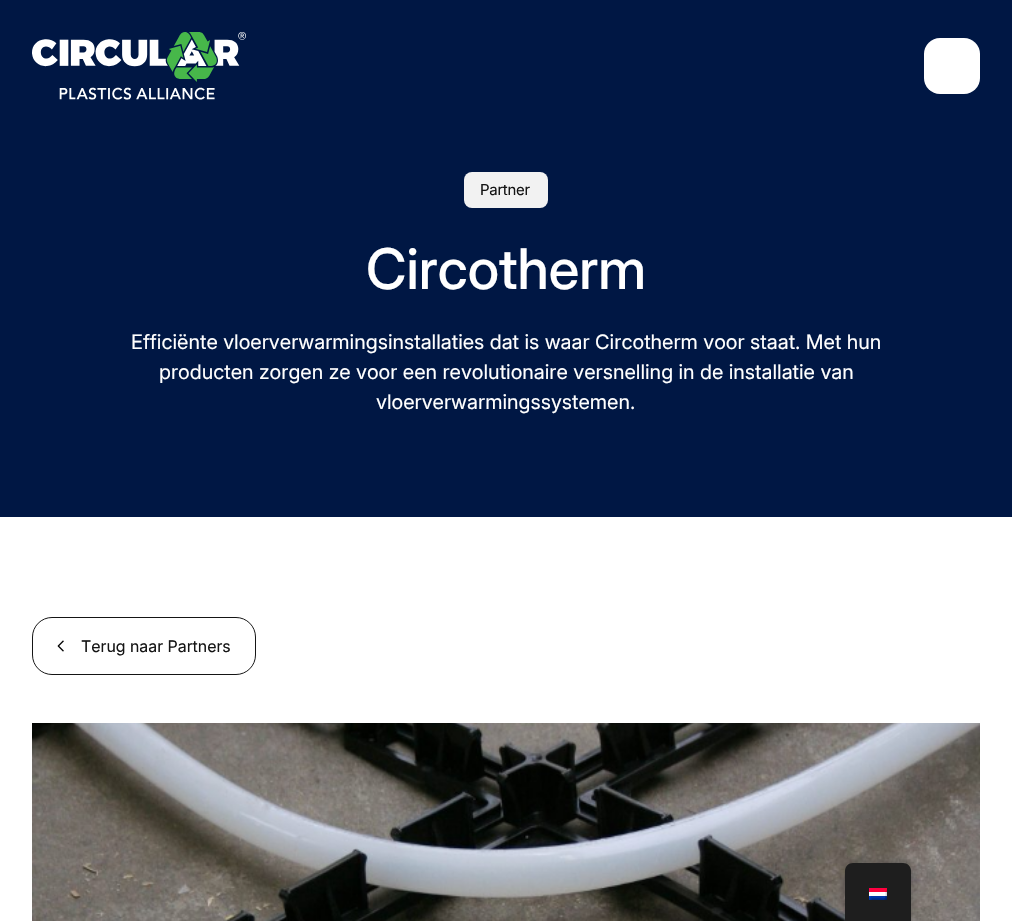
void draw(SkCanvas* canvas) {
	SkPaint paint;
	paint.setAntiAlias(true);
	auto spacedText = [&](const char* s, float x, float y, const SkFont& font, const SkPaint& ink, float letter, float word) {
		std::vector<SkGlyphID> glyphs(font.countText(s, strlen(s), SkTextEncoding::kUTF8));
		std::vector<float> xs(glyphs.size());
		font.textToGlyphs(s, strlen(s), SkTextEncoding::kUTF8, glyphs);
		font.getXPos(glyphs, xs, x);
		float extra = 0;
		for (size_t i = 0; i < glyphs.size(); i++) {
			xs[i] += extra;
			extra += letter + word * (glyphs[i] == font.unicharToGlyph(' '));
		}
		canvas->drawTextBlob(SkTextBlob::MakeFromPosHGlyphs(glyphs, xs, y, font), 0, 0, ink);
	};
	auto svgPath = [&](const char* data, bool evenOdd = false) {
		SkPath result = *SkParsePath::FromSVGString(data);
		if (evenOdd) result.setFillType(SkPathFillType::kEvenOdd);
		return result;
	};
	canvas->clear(0xffffffff);
	paint.setColor(0xff001744);
	canvas->drawRect(SkRect::MakeXYWH(0, 0, 1012, 517), paint);
	canvas->drawImageRect(SkImages::DeferredFromEncodedData(SkData::MakeFromFileName("img1.png")), SkRect::MakeXYWH(32, 32, 214, 68), SkSamplingOptions());
	paint.setColor(0xffffffff);
	canvas->drawRoundRect(SkRect::MakeXYWH(924, 38, 56, 56), 16, 16, paint);
	paint.setColor(0xfff2f2f2);
	canvas->drawRoundRect(SkRect::MakeXYWH(464, 172, 84, 36), 8, 8, paint);
	SkFont f1(fontMgr->matchFamilyStyle("Inter", SkFontStyle::Normal()), 15);
	f1.setSubpixel(true);
	paint.setColor(0xff151515);
	spacedText("Partner", 480, 195, f1, paint, -0.25, 0);
	SkFont f2(fontMgr->matchFamilyStyle("Inter", SkFontStyle(500, SkFontStyle::kNormal_Width, SkFontStyle::kUpright_Slant)), 56);
	f2.setSubpixel(true);
	paint.setColor(0xffffffff);
	canvas->drawString("Circotherm", 366, 289, f2, paint);
	SkFont f3(fontMgr->matchFamilyStyle("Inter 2", SkFontStyle::Normal()), 20);
	f3.setSubpixel(true);
	canvas->drawString("Efficiënte vloerverwarmingsinstallaties dat is waar Circotherm voor staat. Met hun", 131, 349, f3, paint);
	canvas->drawString("producten zorgen ze voor een revolutionaire versnelling in de installatie van", 159, 379, f3, paint);
	canvas->drawString("vloerverwarmingssystemen.", 376, 409, f3, paint);
	paint.setStroke(true);
	paint.setStrokeWidth(1);
	paint.setColor(0xff151515);
	canvas->drawRoundRect(SkRect::MakeXYWH(32.5, 617.5, 223, 57), 19.5, 19.5, paint);
	canvas->drawImageRect(SkImages::DeferredFromEncodedData(SkData::MakeFromFileName("img2.png")), SkRect::MakeXYWH(57, 640, 7, 12), SkSamplingOptions());
	SkFont f4(fontMgr->matchFamilyStyle("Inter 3", SkFontStyle::Normal()), 16);
	f4.setSubpixel(true);
	paint.setStroke(false);
	canvas->drawString("Terug naar Partners", 81, 652, f4, paint);
	canvas->drawImageRect(SkImages::DeferredFromEncodedData(SkData::MakeFromFileName("img3.png")), SkRect::MakeXYWH(32, 739, 948, 182), SkSamplingOptions());
	canvas->drawImageRect(SkImages::DeferredFromEncodedData(SkData::MakeFromFileName("img4.png")), SkRect::MakeXYWH(32, 723, 948, 16), SkSamplingOptions());
	paint.setColor(0x40000000);
	paint.setMaskFilter(SkMaskFilter::MakeBlur(kNormal_SkBlurStyle, 4));
	canvas->drawRoundRect(SkRect::MakeXYWH(845, 863, 66, 58), 8, 8, paint);
	paint.setMaskFilter(nullptr);
	paint.setColor(0xff1e1e1e);
	canvas->drawPath(svgPath("M853 863H903C907.5 863 911 866.5 911 871V921H845V871C845 866.5 848.5 863 853 863Z"), paint);
	canvas->drawImageRect(SkImages::DeferredFromEncodedData(SkData::MakeFromFileName("img5.png")), SkRect::MakeXYWH(869, 888, 18, 12), SkSamplingOptions());
}
